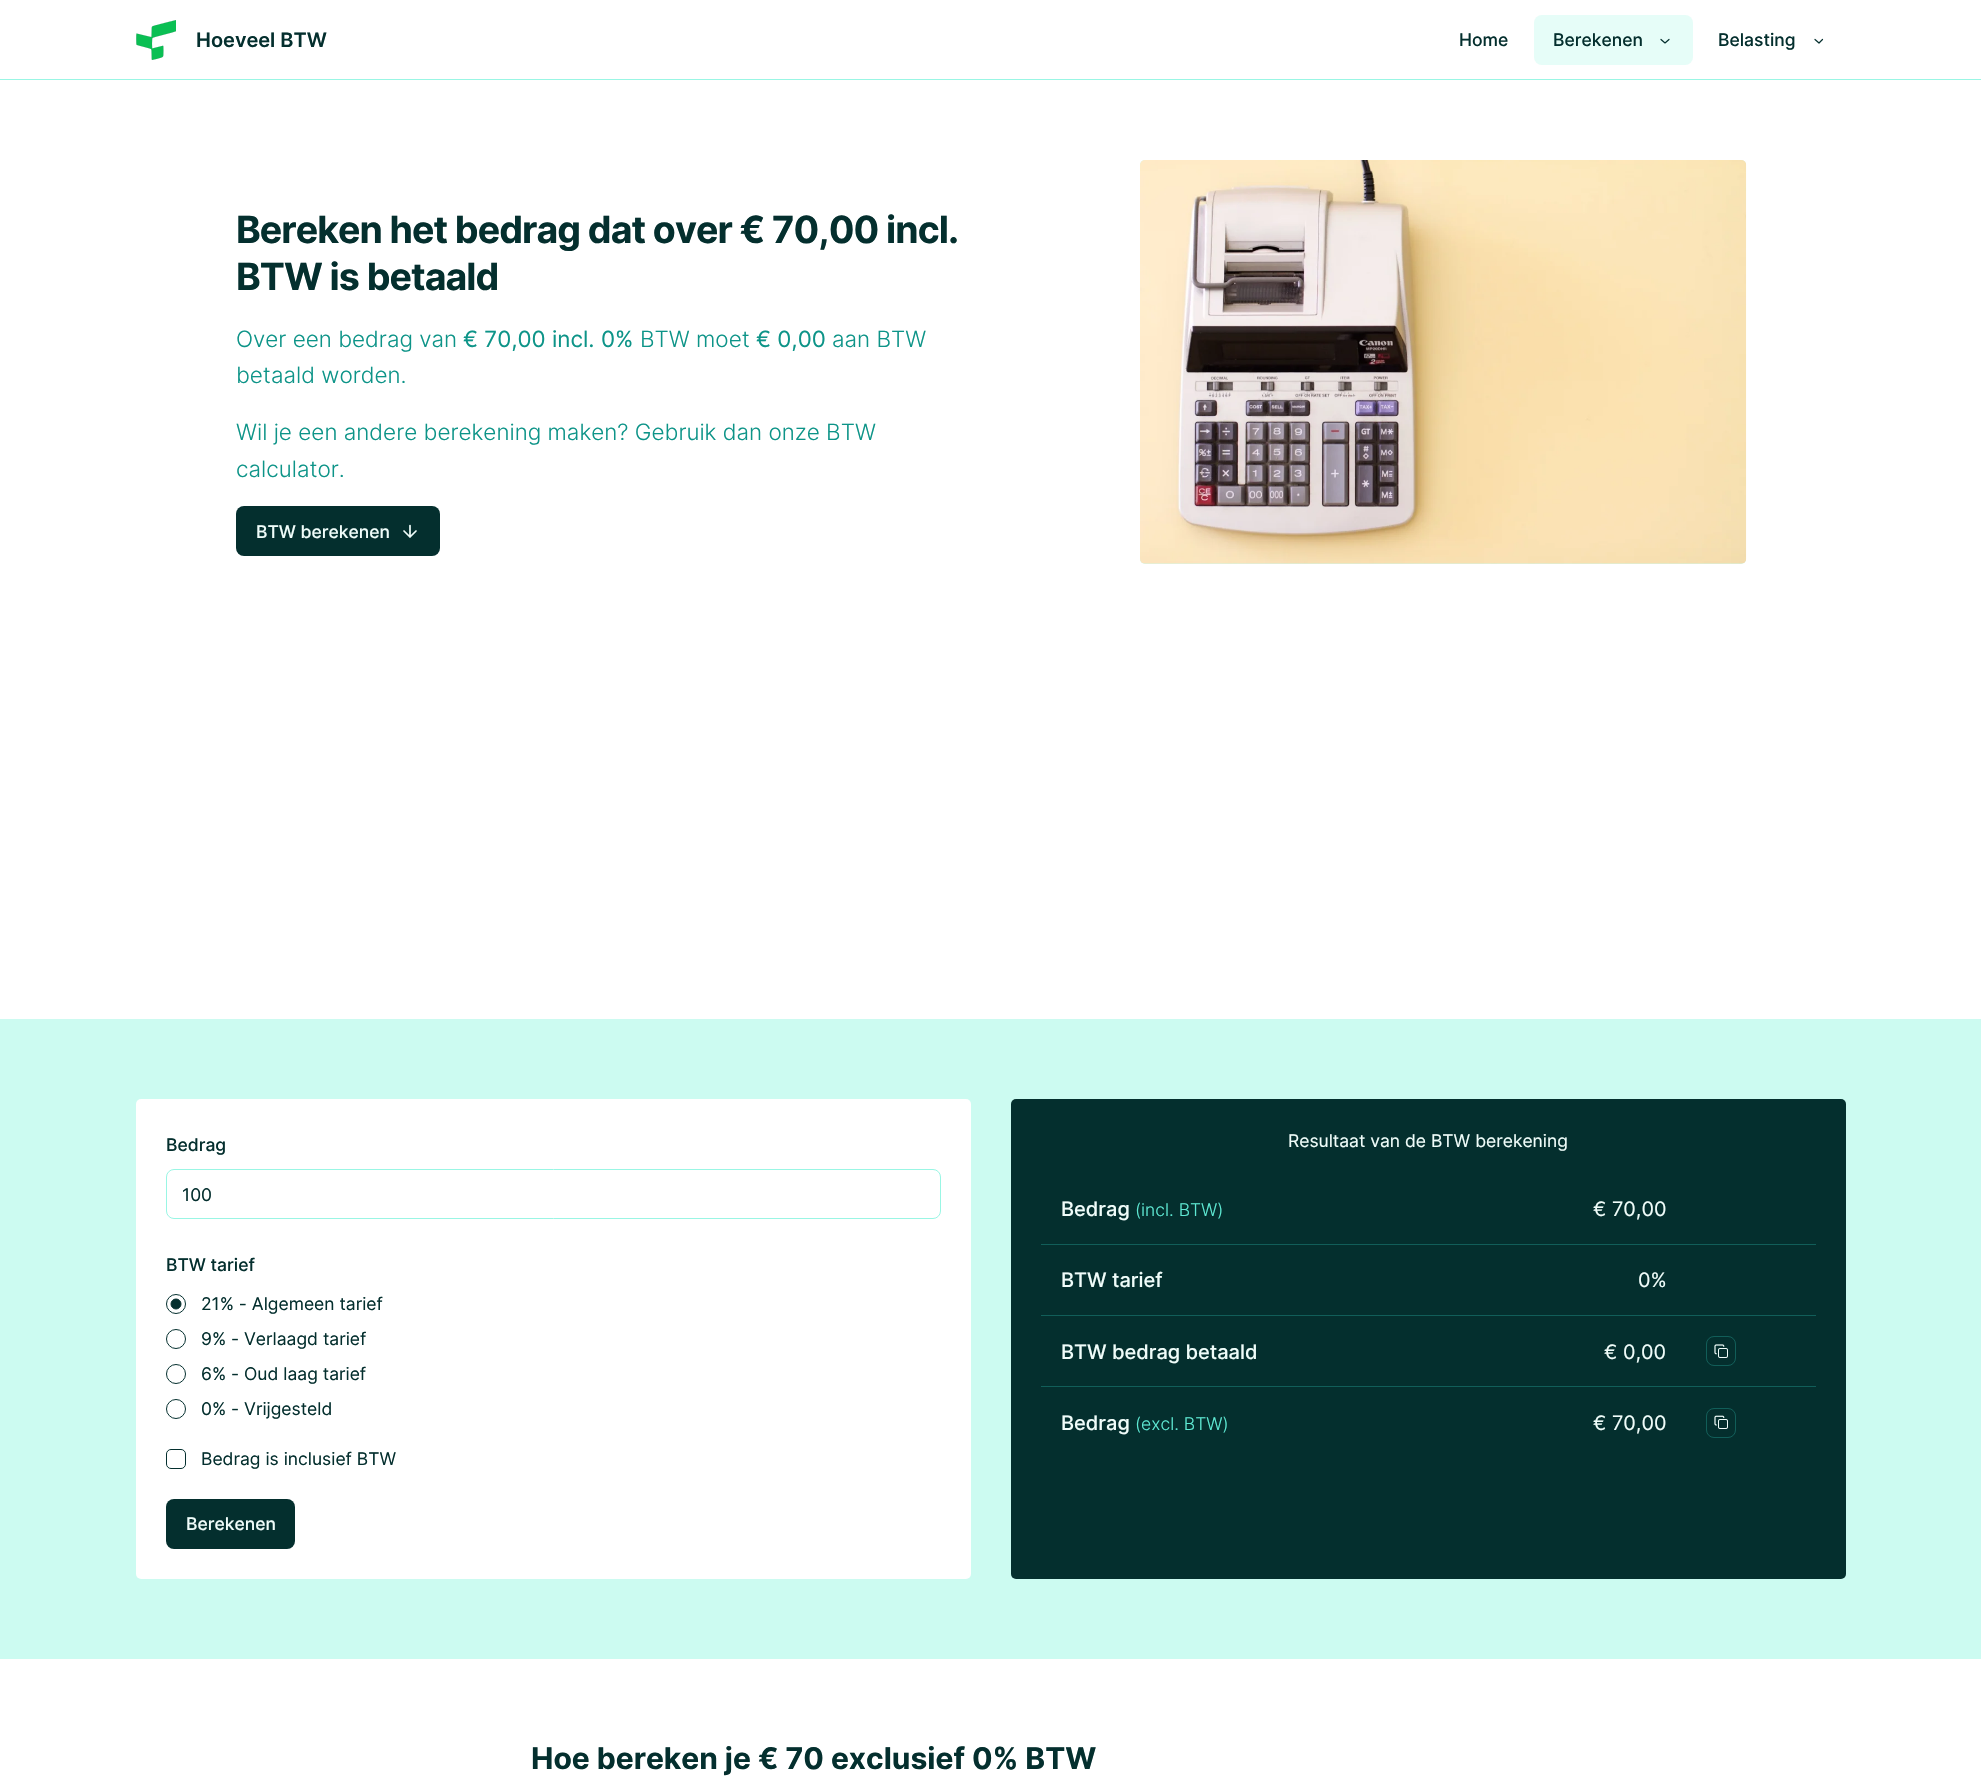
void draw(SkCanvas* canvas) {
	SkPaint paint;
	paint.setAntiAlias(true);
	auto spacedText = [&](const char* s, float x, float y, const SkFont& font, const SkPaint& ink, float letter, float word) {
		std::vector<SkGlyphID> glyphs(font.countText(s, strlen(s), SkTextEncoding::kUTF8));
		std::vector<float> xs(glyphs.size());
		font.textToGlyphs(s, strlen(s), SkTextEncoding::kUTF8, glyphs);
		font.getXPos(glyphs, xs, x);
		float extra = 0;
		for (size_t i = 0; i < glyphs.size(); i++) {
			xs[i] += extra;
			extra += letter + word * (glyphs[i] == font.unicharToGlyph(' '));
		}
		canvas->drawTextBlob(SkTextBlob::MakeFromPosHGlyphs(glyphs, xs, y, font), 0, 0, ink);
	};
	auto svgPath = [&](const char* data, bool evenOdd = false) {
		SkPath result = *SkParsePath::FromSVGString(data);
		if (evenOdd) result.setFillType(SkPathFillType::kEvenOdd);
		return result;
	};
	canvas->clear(0xffffffff);
	paint.setColor(0xff99f6e4);
	canvas->drawRect(SkRect::MakeXYWH(0, 79, 1981, 1), paint);
	canvas->drawImageRect(SkImages::DeferredFromEncodedData(SkData::MakeFromFileName("img1.png")), SkRect::MakeXYWH(136, 20, 40, 40), SkSamplingOptions());
	SkFont f1(fontMgr->matchFamilyStyle("Inter", SkFontStyle(600, SkFontStyle::kNormal_Width, SkFontStyle::kUpright_Slant)), 20);
	f1.setSubpixel(true);
	paint.setColor(0xff042f2e);
	canvas->drawString("Hoeveel BTW", 196, 47, f1, paint);
	SkFont f2(fontMgr->matchFamilyStyle("Inter", SkFontStyle(500, SkFontStyle::kNormal_Width, SkFontStyle::kUpright_Slant)), 17.5);
	f2.setSubpixel(true);
	canvas->drawString("Home", 1459, 46, f2, paint);
	paint.setColor(0xffe6fdf8);
	canvas->drawRoundRect(SkRect::MakeXYWH(1534, 15, 159, 50), 8, 8, paint);
	paint.setColor(0xff042f2e);
	canvas->drawString("Berekenen", 1553, 46, f2, paint);
	paint.setStroke(true);
	paint.setStrokeWidth(1.2);
	paint.setStrokeCap(SkPaint::kRound_Cap);
	paint.setStrokeJoin(SkPaint::kRound_Join);
	canvas->drawPath(svgPath("M1661 39.5L1665 43L1669 39.5"), paint);
	paint.setStroke(false);
	canvas->drawString("Belasting", 1718, 46, f2, paint);
	paint.setStroke(true);
	canvas->drawPath(svgPath("M1815 39.5L1819 43L1822.5 39.5"), paint);
	SkFont f3(fontMgr->matchFamilyStyle("Inter", SkFontStyle::Bold()), 37.5);
	f3.setSubpixel(true);
	paint.setStroke(false);
	spacedText("Bereken het bedrag dat over € 70,00 incl.", 236, 243, f3, paint, -0.95, 0);
	spacedText("BTW is betaald", 236, 290, f3, paint, -0.95, 0);
	SkFont f4(fontMgr->matchFamilyStyle("Inter", SkFontStyle(300, SkFontStyle::kNormal_Width, SkFontStyle::kUpright_Slant)), 22.5);
	f4.setSubpixel(true);
	paint.setColor(0xff0d9488);
	canvas->drawString("Over een bedrag van", 236, 347, f4, paint);
	SkFont f5(fontMgr->matchFamilyStyle("Inter", SkFontStyle::Normal()), 22.5);
	f5.setSubpixel(true);
	canvas->drawString("€ 70,00 incl. 0%", 463, 347, f5, paint);
	canvas->drawString("BTW moet", 640, 347, f4, paint);
	canvas->drawString("€ 0,00", 756, 347, f5, paint);
	canvas->drawString("aan BTW", 832, 347, f4, paint);
	canvas->drawString("betaald worden.", 236, 383, f4, paint);
	canvas->drawString("Wil je een andere berekening maken? Gebruik dan onze BTW", 236, 440, f4, paint);
	canvas->drawString("calculator.", 236, 477, f4, paint);
	paint.setColor(0xff042f2e);
	canvas->drawRoundRect(SkRect::MakeXYWH(236, 506, 204, 50), 8, 8, paint);
	paint.setColor(0xfff0fdfa);
	canvas->drawString("BTW berekenen", 256, 538, f2, paint);
	paint.setStroke(true);
	paint.setStrokeWidth(1.7);
	canvas->drawPath(svgPath("M410 525.5V537M416 531L410 537L404 531"), paint);
	paint.setStroke(false);
	paint.setColor(0xffccfbf1);
	canvas->drawRoundRect(SkRect::MakeXYWH(1140, 160, 606, 404), 5, 5, paint);
	canvas->drawImageRect(SkImages::DeferredFromEncodedData(SkData::MakeFromFileName("img2.png")), SkRect::MakeXYWH(1140, 160, 607, 404), SkSamplingOptions());
	canvas->drawRect(SkRect::MakeXYWH(0, 1019, 1981, 640), paint);
	paint.setColor(0xffffffff);
	canvas->drawRoundRect(SkRect::MakeXYWH(136, 1099, 835, 480), 5, 5, paint);
	paint.setColor(0xff042f2e);
	canvas->drawString("Bedrag", 166, 1151, f2, paint);
	paint.setStroke(true);
	paint.setStrokeWidth(1);
	paint.setStrokeCap(SkPaint::kButt_Cap);
	paint.setStrokeJoin(SkPaint::kMiter_Join);
	paint.setColor(0xff99f6e4);
	canvas->drawRoundRect(SkRect::MakeXYWH(166.5, 1169.5, 774, 49), 7.5, 7.5, paint);
	SkFont f6(fontMgr->matchFamilyStyle("Inter", SkFontStyle::Normal()), 17.5);
	f6.setSubpixel(true);
	paint.setStroke(false);
	paint.setColor(0xff042f2e);
	canvas->drawString("100", 182, 1201, f6, paint);
	canvas->drawString("BTW tarief", 166, 1271, f2, paint);
	paint.setStroke(true);
	canvas->drawCircle(176, 1304, 9.5, paint);
	paint.setStroke(false);
	canvas->drawCircle(176, 1304, 5, paint);
	paint.setStroke(true);
	canvas->drawCircle(176, 1304, 5, paint);
	paint.setStroke(false);
	canvas->drawString("21% - Algemeen tarief", 201, 1310, f6, paint);
	paint.setStroke(true);
	canvas->drawCircle(176, 1339, 9.5, paint);
	paint.setStroke(false);
	canvas->drawString("9% - Verlaagd tarief", 201, 1345, f6, paint);
	paint.setStroke(true);
	canvas->drawCircle(176, 1374, 9.5, paint);
	paint.setStroke(false);
	canvas->drawString("6% - Oud laag tarief", 201, 1380, f6, paint);
	paint.setStroke(true);
	canvas->drawCircle(176, 1409, 9.5, paint);
	paint.setStroke(false);
	canvas->drawString("0% - Vrijgesteld", 201, 1415, f6, paint);
	paint.setStroke(true);
	canvas->drawRoundRect(SkRect::MakeXYWH(166.5, 1449.5, 19, 19), 4.5, 4.5, paint);
	paint.setStroke(false);
	canvas->drawString("Bedrag is inclusief BTW", 201, 1465, f6, paint);
	canvas->drawRoundRect(SkRect::MakeXYWH(166, 1499, 129, 50), 8, 8, paint);
	paint.setColor(0xfff0fdfa);
	canvas->drawString("Berekenen", 186, 1530, f2, paint);
	paint.setColor(0xff042f2e);
	canvas->drawRoundRect(SkRect::MakeXYWH(1011, 1099, 835, 480), 5, 5, paint);
	paint.setColor(0xfff0fdfa);
	canvas->drawString("Resultaat van de BTW berekening", 1288, 1147, f6, paint);
	paint.setColor(0xff115e59);
	canvas->drawRect(SkRect::MakeXYWH(1041, 1244, 775, 1), paint);
	SkFont f7(fontMgr->matchFamilyStyle("Inter", SkFontStyle(500, SkFontStyle::kNormal_Width, SkFontStyle::kUpright_Slant)), 20);
	f7.setSubpixel(true);
	paint.setColor(0xfff0fdfa);
	canvas->drawString("Bedrag", 1061, 1216, f7, paint);
	SkFont f8(fontMgr->matchFamilyStyle("Inter", SkFontStyle(300, SkFontStyle::kNormal_Width, SkFontStyle::kUpright_Slant)), 17.5);
	f8.setSubpixel(true);
	paint.setColor(0xff5eead4);
	canvas->drawString("(incl. BTW)", 1135, 1216, f8, paint);
	SkFont f9(fontMgr->matchFamilyStyle("Inter", SkFontStyle::Normal()), 20);
	f9.setSubpixel(true);
	paint.setColor(0xfff0fdfa);
	canvas->drawString("€ 70,00", 1593, 1216, f9, paint);
	paint.setColor(0xff115e59);
	canvas->drawRect(SkRect::MakeXYWH(1041, 1315, 775, 1), paint);
	paint.setColor(0xfff0fdfa);
	canvas->drawString("BTW tarief", 1061, 1287, f7, paint);
	canvas->drawString("0%", 1638, 1287, f9, paint);
	paint.setColor(0xff115e59);
	canvas->drawRect(SkRect::MakeXYWH(1041, 1386, 775, 1), paint);
	paint.setColor(0xfff0fdfa);
	canvas->drawString("BTW bedrag betaald", 1061, 1359, f7, paint);
	canvas->drawString("€ 0,00", 1604, 1359, f9, paint);
	paint.setStroke(true);
	paint.setColor(0xff115e59);
	canvas->drawRoundRect(SkRect::MakeXYWH(1706.5, 1336.5, 29, 29), 7.5, 7.5, paint);
	canvas->drawImageRect(SkImages::DeferredFromEncodedData(SkData::MakeFromFileName("img3.png")), SkRect::MakeXYWH(1714, 1344, 14, 14), SkSamplingOptions());
	paint.setStroke(false);
	paint.setColor(0xfff0fdfa);
	canvas->drawString("Bedrag", 1061, 1430, f7, paint);
	paint.setColor(0xff5eead4);
	canvas->drawString("(excl. BTW)", 1135, 1430, f8, paint);
	paint.setColor(0xfff0fdfa);
	canvas->drawString("€ 70,00", 1593, 1430, f9, paint);
	paint.setStroke(true);
	paint.setColor(0xff115e59);
	canvas->drawRoundRect(SkRect::MakeXYWH(1706.5, 1408.5, 29, 29), 7.5, 7.5, paint);
	canvas->drawImageRect(SkImages::DeferredFromEncodedData(SkData::MakeFromFileName("img4.png")), SkRect::MakeXYWH(1714, 1415, 14, 14), SkSamplingOptions());
	SkFont f10(fontMgr->matchFamilyStyle("Inter", SkFontStyle::Bold()), 30);
	f10.setSubpixel(true);
	paint.setStroke(false);
	paint.setColor(0xff042f2e);
	canvas->drawString("Hoe bereken je € 70 exclusief 0% BTW", 531, 1769, f10, paint);
}
